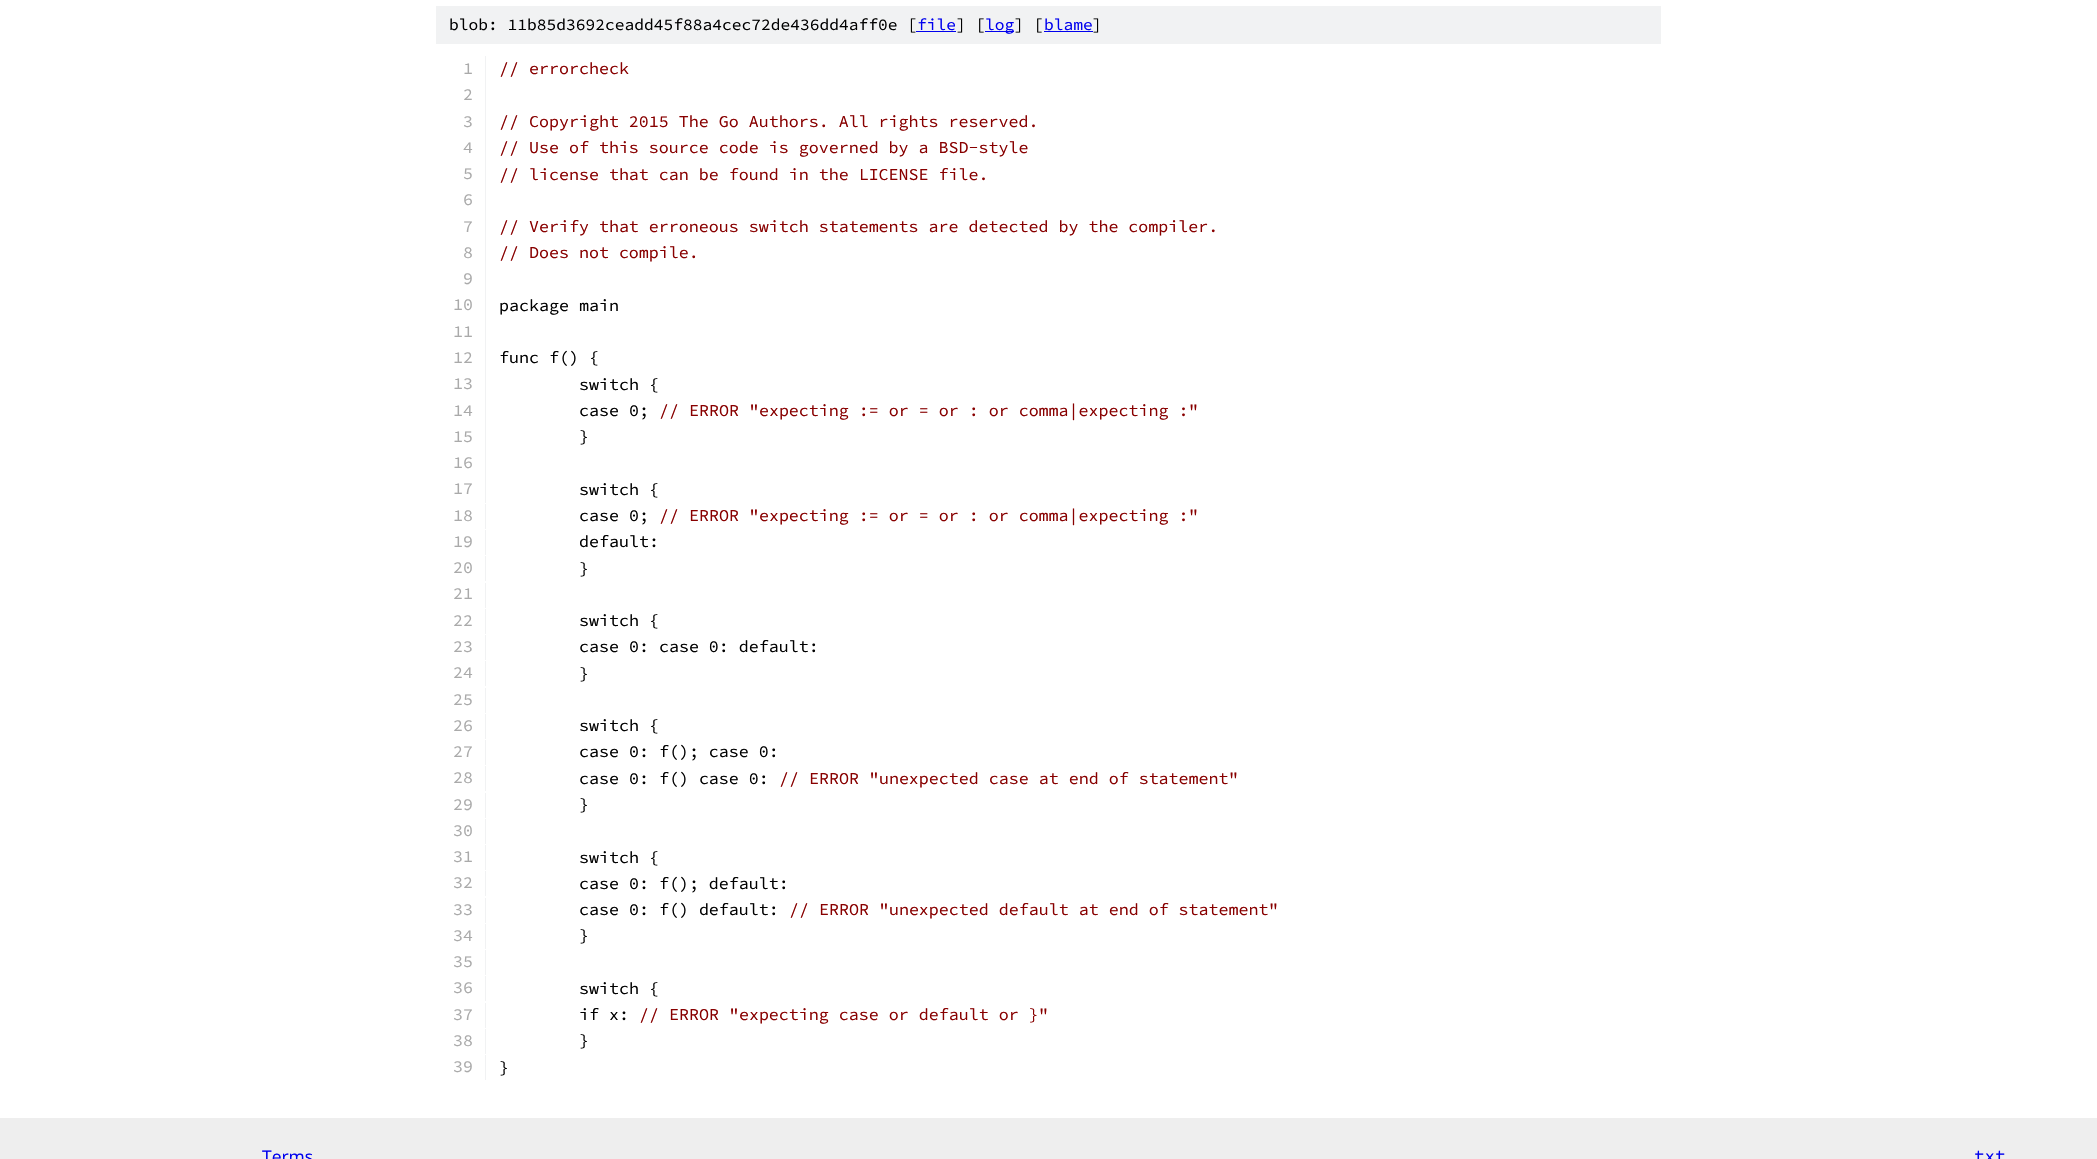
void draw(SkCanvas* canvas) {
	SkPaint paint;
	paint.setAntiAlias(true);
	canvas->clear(0xffffffff);
	paint.setColor(0xfff1f2f3);
	canvas->drawRect(SkRect::MakeXYWH(436, 6, 1225, 38), paint);
	SkFont f1(fontMgr->matchFamilyStyle("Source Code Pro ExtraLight", SkFontStyle(200, SkFontStyle::kNormal_Width, SkFontStyle::kUpright_Slant)), 16.25);
	f1.setSubpixel(true);
	paint.setColor(0xff000000);
	canvas->drawString("blob: 11b85d3692ceadd45f88a4cec72de436dd4aff0e [", 449, 30, f1, paint);
	paint.setColor(0xff0000ee);
	canvas->drawString("file", 917, 30, f1, paint);
	canvas->drawRect(SkRect::MakeXYWH(916, 31, 40, 1), paint);
	paint.setColor(0xff000000);
	canvas->drawString("] [", 956, 30, f1, paint);
	paint.setColor(0xff0000ee);
	canvas->drawRect(SkRect::MakeXYWH(985, 31, 29, 1), paint);
	canvas->drawString("log", 985, 30, f1, paint);
	paint.setColor(0xff000000);
	canvas->drawString("] [", 1014, 30, f1, paint);
	paint.setColor(0xff0000ee);
	canvas->drawString("blame", 1044, 30, f1, paint);
	canvas->drawRect(SkRect::MakeXYWH(1044, 31, 49, 1), paint);
	paint.setColor(0xff000000);
	canvas->drawString("]", 1092, 30, f1, paint);
	paint.setColor(0xfff1f2f3);
	canvas->drawRect(SkRect::MakeXYWH(485, 56, 1, 447), paint);
	SkFont f2(fontMgr->matchFamilyStyle("Source Code Pro ExtraLight", SkFontStyle(200, SkFontStyle::kNormal_Width, SkFontStyle::kUpright_Slant)), 16.65);
	f2.setSubpixel(true);
	paint.setColor(0xffaaaaaa);
	canvas->drawString("1", 463, 74, f2, paint);
	paint.setColor(0xff880000);
	canvas->drawString("// errorcheck", 499, 74, f2, paint);
	paint.setColor(0xffaaaaaa);
	canvas->drawString("2", 463, 100, f2, paint);
	canvas->drawString("3", 463, 127, f2, paint);
	paint.setColor(0xff880000);
	canvas->drawString("// Copyright 2015 The Go Authors. All rights reserved.", 499, 127, f2, paint);
	paint.setColor(0xffaaaaaa);
	canvas->drawString("4", 463, 153, f2, paint);
	paint.setColor(0xff880000);
	canvas->drawString("// Use of this source code is governed by a BSD-style", 499, 153, f2, paint);
	paint.setColor(0xffaaaaaa);
	canvas->drawString("5", 463, 179, f2, paint);
	paint.setColor(0xff880000);
	canvas->drawString("// license that can be found in the LICENSE file.", 499, 180, f2, paint);
	paint.setColor(0xffaaaaaa);
	canvas->drawString("6", 463, 205, f2, paint);
	canvas->drawString("7", 463, 232, f2, paint);
	paint.setColor(0xff880000);
	canvas->drawString("// Verify that erroneous switch statements are detected by the compiler.", 499, 232, f2, paint);
	paint.setColor(0xffaaaaaa);
	canvas->drawString("8", 463, 258, f2, paint);
	paint.setColor(0xff880000);
	canvas->drawString("// Does not compile.", 499, 258, f2, paint);
	paint.setColor(0xffaaaaaa);
	canvas->drawString("9", 463, 284, f2, paint);
	canvas->drawString("10", 453, 310, f2, paint);
	paint.setColor(0xff000000);
	canvas->drawString("package main", 499, 311, f2, paint);
	paint.setColor(0xffaaaaaa);
	canvas->drawString("11", 453, 337, f2, paint);
	canvas->drawString("12", 453, 363, f2, paint);
	paint.setColor(0xff000000);
	canvas->drawString("func f() {", 499, 363, f2, paint);
	paint.setColor(0xffaaaaaa);
	canvas->drawString("13", 453, 389, f2, paint);
	paint.setColor(0xff000000);
	canvas->drawString("switch {", 579, 390, f2, paint);
	paint.setColor(0xffaaaaaa);
	canvas->drawString("14", 453, 416, f2, paint);
	paint.setColor(0xff000000);
	canvas->drawString("case 0;", 579, 416, f2, paint);
	paint.setColor(0xff880000);
	canvas->drawString("// ERROR \"expecting := or = or : or comma|expecting :\"", 659, 416, f2, paint);
	paint.setColor(0xffaaaaaa);
	canvas->drawString("15", 453, 442, f2, paint);
	paint.setColor(0xff000000);
	canvas->drawString("}", 579, 442, f2, paint);
	paint.setColor(0xffaaaaaa);
	canvas->drawString("16", 453, 468, f2, paint);
	canvas->drawString("17", 453, 494, f2, paint);
	paint.setColor(0xff000000);
	canvas->drawString("switch {", 579, 495, f2, paint);
	paint.setColor(0xfff1f2f3);
	canvas->drawRect(SkRect::MakeXYWH(485, 504, 1, 25), paint);
	paint.setColor(0xffaaaaaa);
	canvas->drawString("18", 453, 521, f2, paint);
	paint.setColor(0xff000000);
	canvas->drawString("case 0;", 579, 521, f2, paint);
	paint.setColor(0xff880000);
	canvas->drawString("// ERROR \"expecting := or = or : or comma|expecting :\"", 659, 521, f2, paint);
	paint.setColor(0xfff1f2f3);
	canvas->drawRect(SkRect::MakeXYWH(485, 530, 1, 25), paint);
	paint.setColor(0xffaaaaaa);
	canvas->drawString("19", 453, 547, f2, paint);
	paint.setColor(0xff000000);
	canvas->drawString("default:", 579, 547, f2, paint);
	paint.setColor(0xfff1f2f3);
	canvas->drawRect(SkRect::MakeXYWH(485, 556, 1, 25), paint);
	paint.setColor(0xffaaaaaa);
	canvas->drawString("20", 453, 573, f2, paint);
	paint.setColor(0xff000000);
	canvas->drawString("}", 579, 574, f2, paint);
	paint.setColor(0xfff1f2f3);
	canvas->drawRect(SkRect::MakeXYWH(485, 583, 1, 25), paint);
	paint.setColor(0xffaaaaaa);
	canvas->drawString("21", 453, 599, f2, paint);
	paint.setColor(0xfff1f2f3);
	canvas->drawRect(SkRect::MakeXYWH(485, 609, 1, 25), paint);
	paint.setColor(0xffaaaaaa);
	canvas->drawString("22", 453, 626, f2, paint);
	paint.setColor(0xff000000);
	canvas->drawString("switch {", 579, 626, f2, paint);
	paint.setColor(0xfff1f2f3);
	canvas->drawRect(SkRect::MakeXYWH(485, 635, 1, 25), paint);
	paint.setColor(0xffaaaaaa);
	canvas->drawString("23", 453, 652, f2, paint);
	paint.setColor(0xff000000);
	canvas->drawString("case 0: case 0: default:", 579, 652, f2, paint);
	paint.setColor(0xfff1f2f3);
	canvas->drawRect(SkRect::MakeXYWH(485, 661, 1, 25), paint);
	paint.setColor(0xffaaaaaa);
	canvas->drawString("24", 453, 678, f2, paint);
	paint.setColor(0xff000000);
	canvas->drawString("}", 579, 679, f2, paint);
	paint.setColor(0xfff1f2f3);
	canvas->drawRect(SkRect::MakeXYWH(485, 688, 1, 25), paint);
	paint.setColor(0xffaaaaaa);
	canvas->drawString("25", 453, 705, f2, paint);
	paint.setColor(0xfff1f2f3);
	canvas->drawRect(SkRect::MakeXYWH(485, 714, 1, 25), paint);
	paint.setColor(0xffaaaaaa);
	canvas->drawString("26", 453, 731, f2, paint);
	paint.setColor(0xff000000);
	canvas->drawString("switch {", 579, 731, f2, paint);
	paint.setColor(0xfff1f2f3);
	canvas->drawRect(SkRect::MakeXYWH(485, 740, 1, 25), paint);
	paint.setColor(0xffaaaaaa);
	canvas->drawString("27", 453, 757, f2, paint);
	paint.setColor(0xff000000);
	canvas->drawString("case 0: f(); case 0:", 579, 757, f2, paint);
	paint.setColor(0xfff1f2f3);
	canvas->drawRect(SkRect::MakeXYWH(485, 766, 1, 25), paint);
	paint.setColor(0xffaaaaaa);
	canvas->drawString("28", 453, 783, f2, paint);
	paint.setColor(0xff000000);
	canvas->drawString("case 0: f() case 0:", 579, 784, f2, paint);
	paint.setColor(0xff880000);
	canvas->drawString("// ERROR \"unexpected case at end of statement\"", 779, 784, f2, paint);
	paint.setColor(0xfff1f2f3);
	canvas->drawRect(SkRect::MakeXYWH(485, 793, 1, 25), paint);
	paint.setColor(0xffaaaaaa);
	canvas->drawString("29", 453, 810, f2, paint);
	paint.setColor(0xff000000);
	canvas->drawString("}", 579, 810, f2, paint);
	paint.setColor(0xfff1f2f3);
	canvas->drawRect(SkRect::MakeXYWH(485, 819, 1, 25), paint);
	paint.setColor(0xffaaaaaa);
	canvas->drawString("30", 453, 836, f2, paint);
	paint.setColor(0xfff1f2f3);
	canvas->drawRect(SkRect::MakeXYWH(485, 845, 1, 25), paint);
	paint.setColor(0xffaaaaaa);
	canvas->drawString("31", 453, 862, f2, paint);
	paint.setColor(0xff000000);
	canvas->drawString("switch {", 579, 863, f2, paint);
	paint.setColor(0xfff1f2f3);
	canvas->drawRect(SkRect::MakeXYWH(485, 871, 1, 25), paint);
	paint.setColor(0xffaaaaaa);
	canvas->drawString("32", 453, 888, f2, paint);
	paint.setColor(0xff000000);
	canvas->drawString("case 0: f(); default:", 579, 889, f2, paint);
	paint.setColor(0xfff1f2f3);
	canvas->drawRect(SkRect::MakeXYWH(485, 898, 1, 25), paint);
	paint.setColor(0xffaaaaaa);
	canvas->drawString("33", 453, 915, f2, paint);
	paint.setColor(0xff000000);
	canvas->drawString("case 0: f() default:", 579, 915, f2, paint);
	paint.setColor(0xff880000);
	canvas->drawString("// ERROR \"unexpected default at end of statement\"", 789, 915, f2, paint);
	paint.setColor(0xfff1f2f3);
	canvas->drawRect(SkRect::MakeXYWH(485, 924, 1, 25), paint);
	paint.setColor(0xffaaaaaa);
	canvas->drawString("34", 453, 941, f2, paint);
	paint.setColor(0xff000000);
	canvas->drawString("}", 579, 941, f2, paint);
	paint.setColor(0xfff1f2f3);
	canvas->drawRect(SkRect::MakeXYWH(485, 950, 1, 25), paint);
	paint.setColor(0xffaaaaaa);
	canvas->drawString("35", 453, 967, f2, paint);
	paint.setColor(0xfff1f2f3);
	canvas->drawRect(SkRect::MakeXYWH(485, 976, 1, 25), paint);
	paint.setColor(0xffaaaaaa);
	canvas->drawString("36", 453, 993, f2, paint);
	paint.setColor(0xff000000);
	canvas->drawString("switch {", 579, 994, f2, paint);
	paint.setColor(0xfff1f2f3);
	canvas->drawRect(SkRect::MakeXYWH(485, 1003, 1, 25), paint);
	paint.setColor(0xffaaaaaa);
	canvas->drawString("37", 453, 1020, f2, paint);
	paint.setColor(0xff000000);
	canvas->drawString("if x:", 579, 1020, f2, paint);
	paint.setColor(0xff880000);
	canvas->drawString("// ERROR \"expecting case or default or }\"", 639, 1020, f2, paint);
	paint.setColor(0xfff1f2f3);
	canvas->drawRect(SkRect::MakeXYWH(485, 1029, 1, 25), paint);
	paint.setColor(0xffaaaaaa);
	canvas->drawString("38", 453, 1046, f2, paint);
	paint.setColor(0xff000000);
	canvas->drawString("}", 579, 1046, f2, paint);
	paint.setColor(0xfff1f2f3);
	canvas->drawRect(SkRect::MakeXYWH(485, 1055, 1, 25), paint);
	paint.setColor(0xffaaaaaa);
	canvas->drawString("39", 453, 1072, f2, paint);
	paint.setColor(0xff000000);
	canvas->drawString("}", 499, 1073, f2, paint);
	paint.setColor(0xffeeeeee);
	canvas->drawRect(SkRect::MakeXYWH(0, 1118, 2097, 41), paint);
	SkFont f3(fontMgr->matchFamilyStyle("Open Sans", SkFontStyle::Normal()), 17.5);
	f3.setSubpixel(true);
	paint.setColor(0xff0000ee);
	canvas->drawString("Terms", 262, 1163, f3, paint);
	SkFont f4(fontMgr->matchFamilyStyle("Source Code Pro ExtraLight", SkFontStyle(200, SkFontStyle::kNormal_Width, SkFontStyle::kUpright_Slant)), 17.5);
	f4.setSubpixel(true);
	canvas->drawString("txt", 1974, 1162, f4, paint);
}
